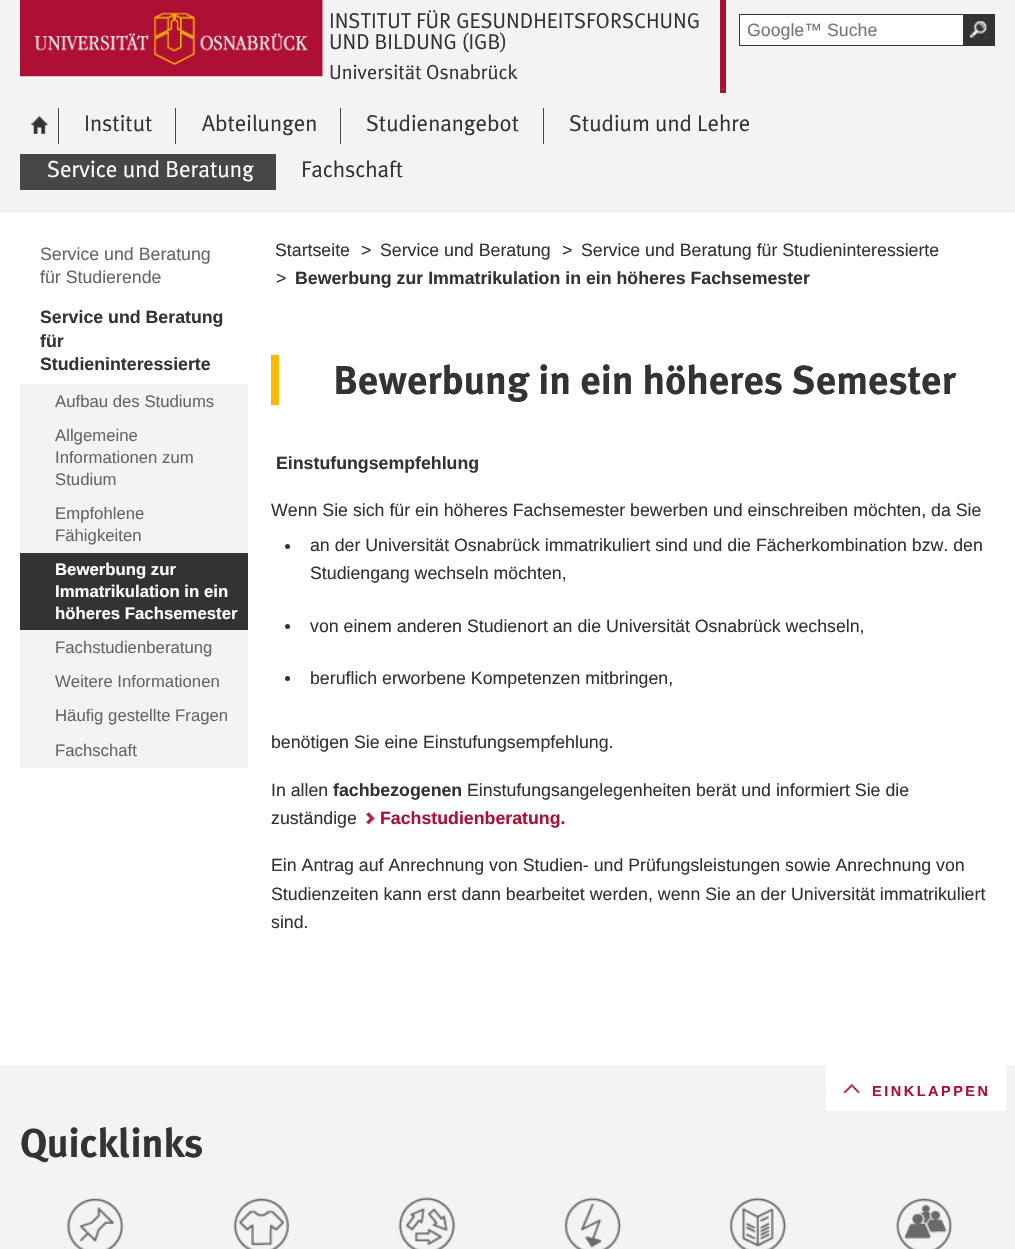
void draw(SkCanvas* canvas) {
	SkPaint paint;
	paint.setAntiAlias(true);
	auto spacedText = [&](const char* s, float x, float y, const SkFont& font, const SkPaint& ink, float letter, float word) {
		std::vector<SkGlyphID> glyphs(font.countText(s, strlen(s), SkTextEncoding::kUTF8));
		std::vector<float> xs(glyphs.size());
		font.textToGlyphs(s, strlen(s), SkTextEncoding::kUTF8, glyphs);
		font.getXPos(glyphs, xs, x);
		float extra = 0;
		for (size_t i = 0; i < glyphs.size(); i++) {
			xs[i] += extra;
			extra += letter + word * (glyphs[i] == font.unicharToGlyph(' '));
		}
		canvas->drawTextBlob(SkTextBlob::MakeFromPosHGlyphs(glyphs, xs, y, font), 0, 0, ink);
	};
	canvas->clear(0xffffffff);
	paint.setColor(0xfff3f3f3);
	canvas->drawRect(SkRect::MakeXYWH(0, 0, 1015, 213), paint);
	canvas->drawImageRect(SkImages::DeferredFromEncodedData(SkData::MakeFromFileName("img1.png")), SkRect::MakeXYWH(20, 0, 303, 77), SkSamplingOptions());
	SkFont f1(fontMgr->matchFamilyStyle("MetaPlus", SkFontStyle::Normal()), 21.4);
	f1.setSubpixel(true);
	paint.setColor(0xff333333);
	canvas->drawString("INSTITUT FÜR GESUNDHEITSFORSCHUNG", 329, 28, f1, paint);
	canvas->drawString("UND BILDUNG (IGB)", 329, 49, f1, paint);
	paint.setColor(0xffac1035);
	canvas->drawRect(SkRect::MakeXYWH(720, 0, 6, 93), paint);
	SkFont f2(fontMgr->matchFamilyStyle("MetaPlus", SkFontStyle::Normal()), 20.25);
	f2.setSubpixel(true);
	paint.setColor(0xff333333);
	canvas->drawString("Universität Osnabrück", 329, 79, f2, paint);
	paint.setColor(0xffffffff);
	canvas->drawRect(SkRect::MakeXYWH(740, 15, 223, 30), paint);
	paint.setStroke(true);
	paint.setStrokeWidth(1);
	paint.setColor(0xff333333);
	canvas->drawRect(SkRect::MakeXYWH(739.5, 14.5, 231, 31), paint);
	SkFont f3(fontMgr->matchFamilyStyle("Liberation Sans", SkFontStyle::Normal()), 17.75);
	f3.setSubpixel(true);
	paint.setStroke(false);
	paint.setColor(0xff757575);
	canvas->drawString("Google™ Suche", 747, 36, f3, paint);
	paint.setStroke(true);
	paint.setColor(0xff333333);
	canvas->drawRect(SkRect::MakeXYWH(963.5, 14.5, 31, 31), paint);
	paint.setStroke(false);
	canvas->drawRect(SkRect::MakeXYWH(964, 15, 30, 30), paint);
	canvas->drawImageRect(SkImages::DeferredFromEncodedData(SkData::MakeFromFileName("img2.png")), SkRect::MakeXYWH(969, 21, 18, 17), SkSamplingOptions());
	canvas->drawImageRect(SkImages::DeferredFromEncodedData(SkData::MakeFromFileName("img3.png")), SkRect::MakeXYWH(31, 116, 17, 18), SkSamplingOptions());
	paint.setColor(0xff474747);
	canvas->drawRect(SkRect::MakeXYWH(58, 108, 1, 36), paint);
	SkFont f4(fontMgr->matchFamilyStyle("MetaPlus", SkFontStyle::Normal()), 22.75);
	f4.setSubpixel(true);
	paint.setColor(0xff333333);
	canvas->drawString("Institut", 84, 131, f4, paint);
	paint.setColor(0xff474747);
	canvas->drawRect(SkRect::MakeXYWH(175, 108, 1, 36), paint);
	paint.setColor(0xff333333);
	canvas->drawString("Abteilungen", 202, 131, f4, paint);
	paint.setColor(0xff474747);
	canvas->drawRect(SkRect::MakeXYWH(340, 108, 1, 36), paint);
	paint.setColor(0xff333333);
	canvas->drawString("Studienangebot", 366, 131, f4, paint);
	paint.setColor(0xff474747);
	canvas->drawRect(SkRect::MakeXYWH(543, 108, 1, 36), paint);
	paint.setColor(0xff333333);
	canvas->drawString("Studium und Lehre", 569, 131, f4, paint);
	paint.setColor(0xff474747);
	canvas->drawRect(SkRect::MakeXYWH(20, 154, 1, 36), paint);
	canvas->drawRect(SkRect::MakeXYWH(21, 159, 254, 26), paint);
	canvas->drawRect(SkRect::MakeXYWH(20, 154, 256, 5), paint);
	canvas->drawRect(SkRect::MakeXYWH(275, 154, 1, 36), paint);
	canvas->drawRect(SkRect::MakeXYWH(20, 185, 256, 5), paint);
	SkFont f5(fontMgr->matchFamilyStyle("MetaPlus", SkFontStyle::Normal()), 23);
	f5.setSubpixel(true);
	paint.setColor(0xffffffff);
	canvas->drawString("Service und Beratung", 47, 177, f5, paint);
	paint.setColor(0xff333333);
	canvas->drawString("Fachschaft", 301, 177, f4, paint);
	paint.setColor(0xff666666);
	canvas->drawString("Service und Beratung", 40, 260, f3, paint);
	canvas->drawString("für Studierende", 40, 283, f3, paint);
	SkFont f6(fontMgr->matchFamilyStyle("Liberation Sans", SkFontStyle::Bold()), 17.75);
	f6.setSubpixel(true);
	paint.setColor(0xff333333);
	canvas->drawString("Service und Beratung", 40, 323, f6, paint);
	canvas->drawString("für", 40, 347, f6, paint);
	canvas->drawString("Studieninteressierte", 40, 370, f6, paint);
	paint.setColor(0xfff3f3f3);
	canvas->drawRect(SkRect::MakeXYWH(20, 384, 228, 384), paint);
	SkFont f7(fontMgr->matchFamilyStyle("Liberation Sans", SkFontStyle::Normal()), 16.75);
	f7.setSubpixel(true);
	paint.setColor(0xff666666);
	canvas->drawString("Aufbau des Studiums", 55, 407, f7, paint);
	canvas->drawString("Allgemeine", 55, 441, f7, paint);
	canvas->drawString("Informationen zum", 55, 463, f7, paint);
	canvas->drawString("Studium", 55, 485, f7, paint);
	canvas->drawString("Empfohlene", 55, 519, f7, paint);
	canvas->drawString("Fähigkeiten", 55, 541, f7, paint);
	paint.setColor(0xff333333);
	canvas->drawRect(SkRect::MakeXYWH(20, 553, 228, 77), paint);
	SkFont f8(fontMgr->matchFamilyStyle("Liberation Sans", SkFontStyle::Bold()), 16.75);
	f8.setSubpixel(true);
	paint.setColor(0xffffffff);
	canvas->drawString("Bewerbung zur", 55, 575, f8, paint);
	canvas->drawString("Immatrikulation in ein", 55, 597, f8, paint);
	canvas->drawString("höheres Fachsemester", 55, 619, f8, paint);
	paint.setColor(0xff666666);
	canvas->drawString("Fachstudienberatung", 55, 653, f7, paint);
	canvas->drawString("Weitere Informationen", 55, 687, f7, paint);
	canvas->drawString("Häufig gestellte Fragen", 55, 721, f7, paint);
	canvas->drawString("Fachschaft", 55, 756, f7, paint);
	paint.setColor(0xff333333);
	canvas->drawString("Startseite", 275, 256, f3, paint);
	canvas->drawString(">", 361, 256, f3, paint);
	canvas->drawString("Service und Beratung", 380, 256, f3, paint);
	canvas->drawString(">", 562, 256, f3, paint);
	canvas->drawString("Service und Beratung für Studieninteressierte", 581, 256, f3, paint);
	canvas->drawString(">", 276, 284, f3, paint);
	canvas->drawString("Bewerbung zur Immatrikulation in ein höheres Fachsemester", 295, 284, f6, paint);
	paint.setColor(0xfffbb900);
	canvas->drawRect(SkRect::MakeXYWH(271, 355, 8, 50), paint);
	SkFont f9(fontMgr->matchFamilyStyle("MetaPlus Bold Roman", SkFontStyle::Bold()), 40.3);
	f9.setSubpixel(true);
	paint.setColor(0xff333333);
	canvas->drawString("Bewerbung in ein höheres Semester", 333, 394, f9, paint);
	canvas->drawString("Einstufungsempfehlung", 276, 469, f6, paint);
	canvas->drawString("Wenn Sie sich für ein höheres Fachsemester bewerben und einschreiben möchten, da Sie", 271, 516, f3, paint);
	canvas->drawCircle(287.5, 546.5, 2.5, paint);
	canvas->drawString("an der Universität Osnabrück immatrikuliert sind und die Fächerkombination bzw. den", 310, 551, f3, paint);
	canvas->drawString("Studiengang wechseln möchten,", 310, 579, f3, paint);
	canvas->drawCircle(287.5, 626.5, 2.5, paint);
	canvas->drawString("von einem anderen Studienort an die Universität Osnabrück wechseln,", 310, 632, f3, paint);
	canvas->drawCircle(287.5, 678.5, 2.5, paint);
	canvas->drawString("beruflich erworbene Kompetenzen mitbringen,", 310, 684, f3, paint);
	canvas->drawString("benötigen Sie eine Einstufungsempfehlung.", 271, 748, f3, paint);
	canvas->drawString("In allen", 271, 796, f3, paint);
	canvas->drawString("fachbezogenen", 333, 796, f6, paint);
	canvas->drawString("Einstufungsangelegenheiten berät und informiert Sie die", 467, 796, f3, paint);
	canvas->drawString("zuständige", 271, 824, f3, paint);
	canvas->drawImageRect(SkImages::DeferredFromEncodedData(SkData::MakeFromFileName("img4.png")), SkRect::MakeXYWH(366, 812, 10, 13), SkSamplingOptions());
	paint.setColor(0xffac1035);
	canvas->drawString("Fachstudienberatung.", 380, 824, f6, paint);
	paint.setColor(0xff333333);
	canvas->drawString("Ein Antrag auf Anrechnung von Studien- und Prüfungsleistungen sowie Anrechnung von", 271, 871, f3, paint);
	canvas->drawString("Studienzeiten kann erst dann bearbeitet werden, wenn Sie an der Universität immatrikuliert", 271, 900, f3, paint);
	canvas->drawString("sind.", 271, 928, f3, paint);
	paint.setColor(0xfff3f3f3);
	canvas->drawRect(SkRect::MakeXYWH(0, 1065, 1015, 184), paint);
	paint.setColor(0xffffffff);
	canvas->drawRect(SkRect::MakeXYWH(826, 1065, 180, 46), paint);
	canvas->drawImageRect(SkImages::DeferredFromEncodedData(SkData::MakeFromFileName("img5.png")), SkRect::MakeXYWH(843, 1083, 17, 10), SkSamplingOptions());
	SkFont f10(fontMgr->matchFamilyStyle("Liberation Sans", SkFontStyle::Bold()), 14.5);
	f10.setSubpixel(true);
	paint.setColor(0xffac1035);
	spacedText("EINKLAPPEN", 872, 1096, f10, paint, 2.5, 0);
	SkFont f11(fontMgr->matchFamilyStyle("MetaPlus Bold Roman", SkFontStyle::Bold()), 40.5);
	f11.setSubpixel(true);
	paint.setColor(0xff333333);
	canvas->drawString("Quicklinks", 20, 1157, f11, paint);
	canvas->drawImageRect(SkImages::DeferredFromEncodedData(SkData::MakeFromFileName("img6.png")), SkRect::MakeXYWH(67, 1198, 57, 51), SkSamplingOptions());
	canvas->drawImageRect(SkImages::DeferredFromEncodedData(SkData::MakeFromFileName("img7.png")), SkRect::MakeXYWH(233, 1198, 56, 51), SkSamplingOptions());
	canvas->drawImageRect(SkImages::DeferredFromEncodedData(SkData::MakeFromFileName("img8.png")), SkRect::MakeXYWH(398, 1197, 58, 52), SkSamplingOptions());
	canvas->drawImageRect(SkImages::DeferredFromEncodedData(SkData::MakeFromFileName("img9.png")), SkRect::MakeXYWH(564, 1197, 58, 52), SkSamplingOptions());
	canvas->drawImageRect(SkImages::DeferredFromEncodedData(SkData::MakeFromFileName("img10.png")), SkRect::MakeXYWH(729, 1197, 58, 52), SkSamplingOptions());
	canvas->drawImageRect(SkImages::DeferredFromEncodedData(SkData::MakeFromFileName("img11.png")), SkRect::MakeXYWH(896, 1198, 56, 51), SkSamplingOptions());
}
